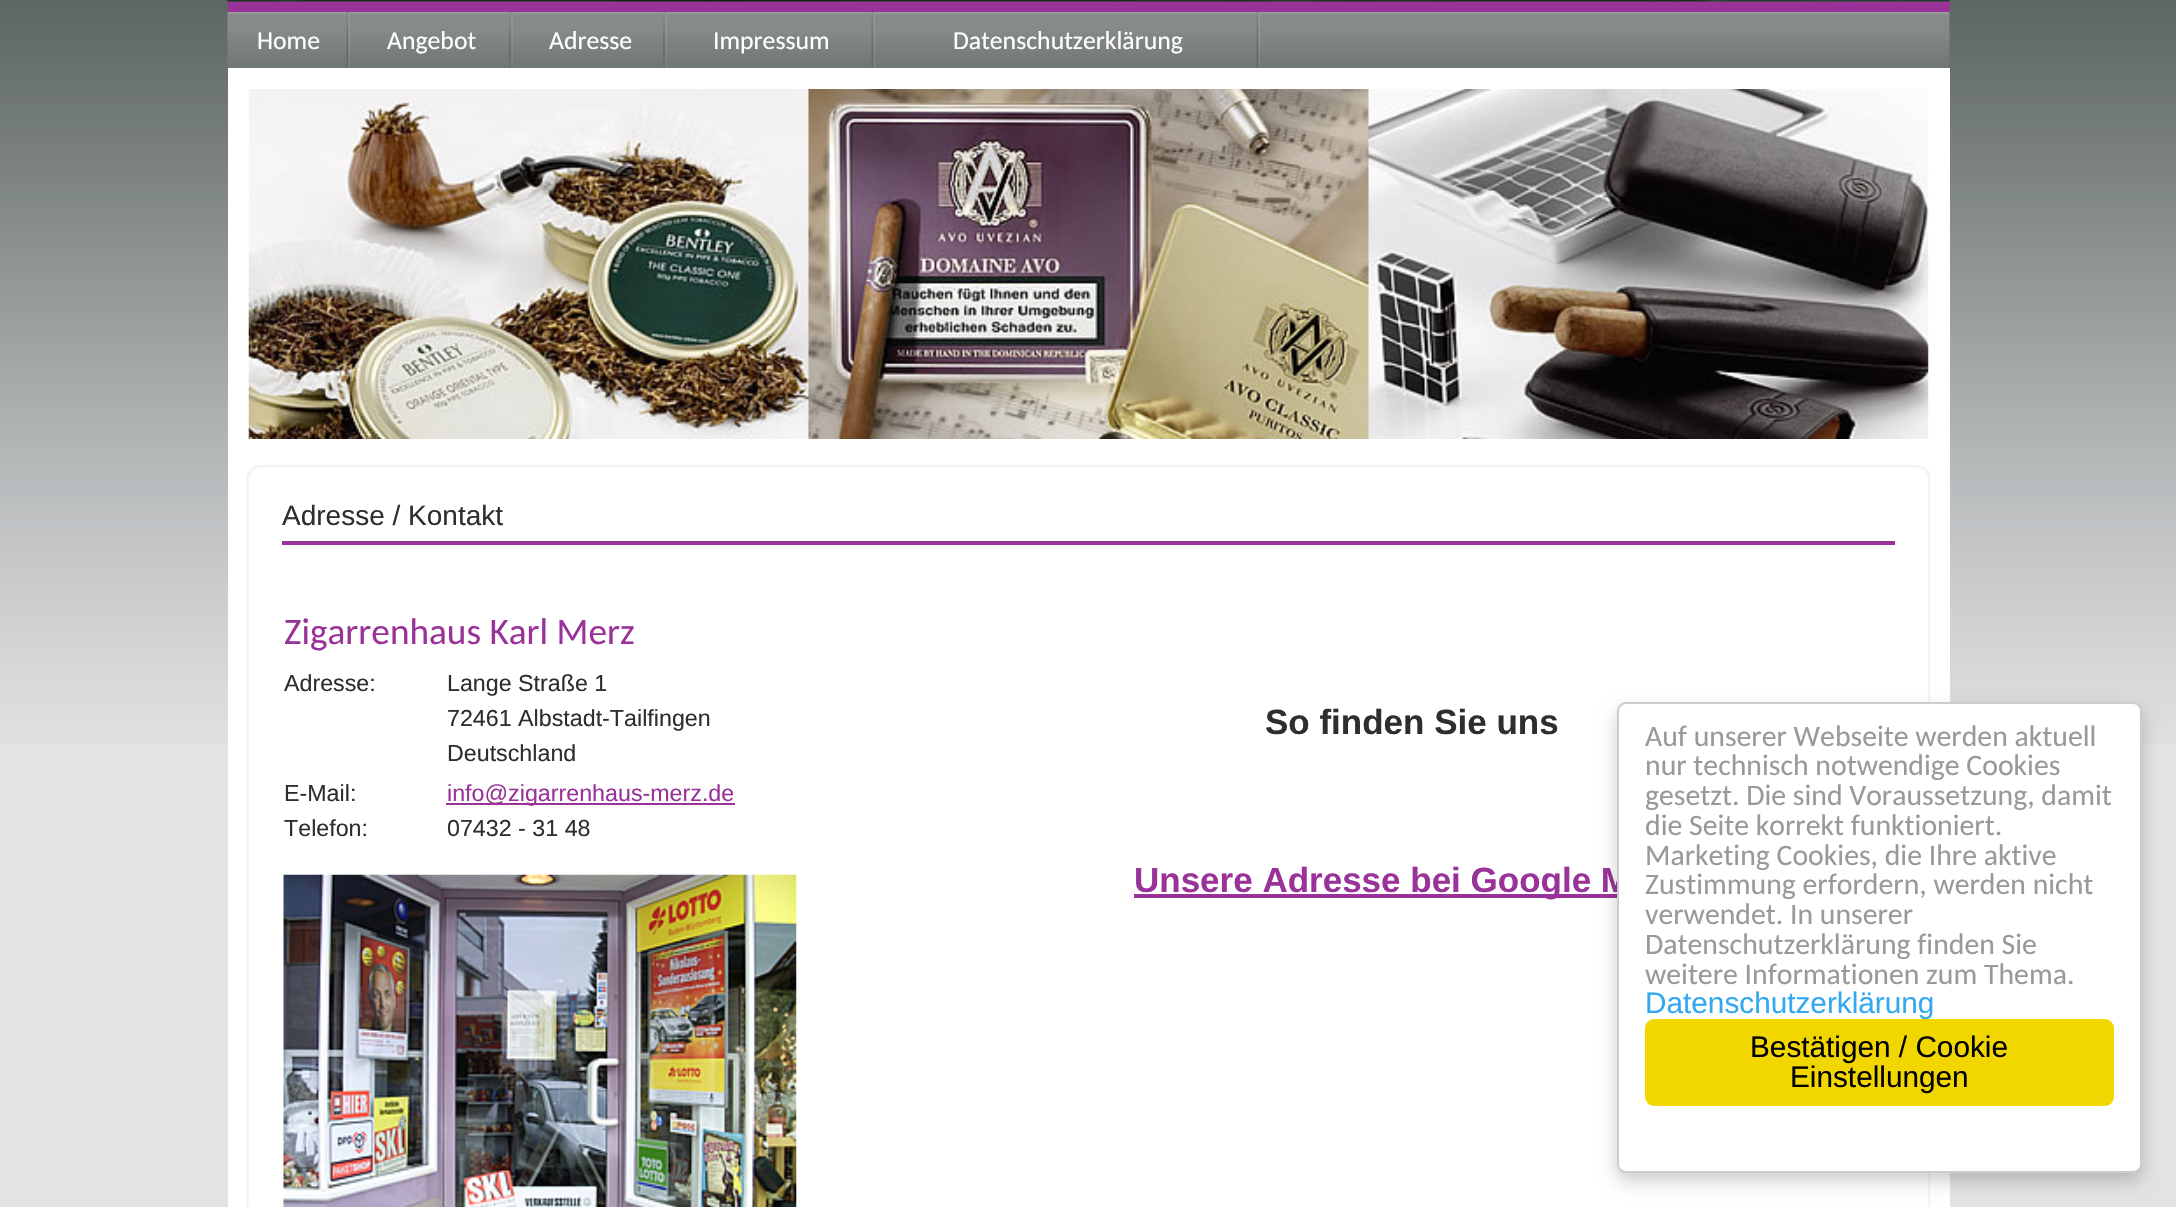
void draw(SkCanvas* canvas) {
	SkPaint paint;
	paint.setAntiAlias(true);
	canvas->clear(0xffe3e3e3);
	canvas->drawImageRect(SkImages::DeferredFromEncodedData(SkData::MakeFromFileName("img1.png")), SkRect::MakeXYWH(0, 0, 2176, 744), SkSamplingOptions());
	canvas->drawImageRect(SkImages::DeferredFromEncodedData(SkData::MakeFromFileName("img2.png")), SkRect::MakeXYWH(227, 0, 1723, 2), SkSamplingOptions());
	paint.setColor(0xff993399);
	canvas->drawRect(SkRect::MakeXYWH(228, 2, 1722, 10), paint);
	canvas->drawImageRect(SkImages::DeferredFromEncodedData(SkData::MakeFromFileName("img3.png")), SkRect::MakeXYWH(227, 12, 1723, 56), SkSamplingOptions());
	canvas->drawImageRect(SkImages::DeferredFromEncodedData(SkData::MakeFromFileName("img4.png")), SkRect::MakeXYWH(346, 12, 4, 56), SkSamplingOptions());
	SkFont f1(fontMgr->matchFamilyStyle("Carlito", SkFontStyle::Normal()), 25.75);
	f1.setSubpixel(true);
	paint.setColor(0xffffffff);
	canvas->drawString("Home", 257, 49, f1, paint);
	canvas->drawImageRect(SkImages::DeferredFromEncodedData(SkData::MakeFromFileName("img5.png")), SkRect::MakeXYWH(509, 12, 4, 56), SkSamplingOptions());
	canvas->drawString("Angebot", 387, 49, f1, paint);
	canvas->drawImageRect(SkImages::DeferredFromEncodedData(SkData::MakeFromFileName("img5.png")), SkRect::MakeXYWH(663, 12, 4, 56), SkSamplingOptions());
	canvas->drawString("Adresse", 549, 49, f1, paint);
	canvas->drawImageRect(SkImages::DeferredFromEncodedData(SkData::MakeFromFileName("img4.png")), SkRect::MakeXYWH(871, 12, 4, 56), SkSamplingOptions());
	canvas->drawString("Impressum", 713, 49, f1, paint);
	canvas->drawImageRect(SkImages::DeferredFromEncodedData(SkData::MakeFromFileName("img4.png")), SkRect::MakeXYWH(1256, 12, 4, 56), SkSamplingOptions());
	canvas->drawString("Datenschutzerklärung", 953, 49, f1, paint);
	canvas->drawRect(SkRect::MakeXYWH(228, 68, 1722, 392), paint);
	canvas->drawImageRect(SkImages::DeferredFromEncodedData(SkData::MakeFromFileName("img6.png")), SkRect::MakeXYWH(248, 89, 1681, 350), SkSamplingOptions());
	canvas->drawRect(SkRect::MakeXYWH(228, 460, 19, 747), paint);
	canvas->drawImageRect(SkImages::DeferredFromEncodedData(SkData::MakeFromFileName("img7.png")), SkRect::MakeXYWH(246, 460, 1684, 35), SkSamplingOptions());
	canvas->drawImageRect(SkImages::DeferredFromEncodedData(SkData::MakeFromFileName("img8.png")), SkRect::MakeXYWH(246, 495, 1684, 712), SkSamplingOptions());
	paint.setColor(0xff993399);
	canvas->drawRect(SkRect::MakeXYWH(282, 541, 1613, 4), paint);
	SkFont f2(fontMgr->matchFamilyStyle("Liberation Sans", SkFontStyle::Normal()), 28);
	f2.setSubpixel(true);
	paint.setColor(0xff2e2e2e);
	canvas->drawString("Adresse / Kontakt", 282, 525, f2, paint);
	SkFont f3(fontMgr->matchFamilyStyle("Carlito", SkFontStyle::Normal()), 37.25);
	f3.setSubpixel(true);
	paint.setColor(0xff993399);
	canvas->drawString("Zigarrenhaus Karl Merz", 284, 644, f3, paint);
	SkFont f4(fontMgr->matchFamilyStyle("Liberation Sans", SkFontStyle::Normal()), 23.25);
	f4.setSubpixel(true);
	paint.setColor(0xff2e2e2e);
	canvas->drawString("Adresse:", 284, 691, f4, paint);
	canvas->drawString("Lange Straße 1", 447, 691, f4, paint);
	canvas->drawString("72461 Albstadt-Tailfingen", 447, 726, f4, paint);
	canvas->drawString("Deutschland", 447, 761, f4, paint);
	SkFont f5(fontMgr->matchFamilyStyle("Liberation Sans", SkFontStyle::Bold()), 35);
	f5.setSubpixel(true);
	canvas->drawString("So finden Sie uns", 1265, 734, f5, paint);
	paint.setColor(0xff993399);
	canvas->drawRect(SkRect::MakeXYWH(1134, 894, 483, 4), paint);
	canvas->drawString("Unsere Adresse bei Google M", 1134, 892, f5, paint);
	paint.setColor(0xff2e2e2e);
	canvas->drawString("E-Mail:", 284, 801, f4, paint);
	canvas->drawString("Telefon:", 284, 836, f4, paint);
	paint.setColor(0xff993399);
	canvas->drawRect(SkRect::MakeXYWH(446, 803, 289, 2), paint);
	canvas->drawString("info@zigarrenhaus-merz.de", 447, 801, f4, paint);
	paint.setColor(0xff2e2e2e);
	canvas->drawString("07432 - 31 48", 447, 836, f4, paint);
	canvas->drawImageRect(SkImages::DeferredFromEncodedData(SkData::MakeFromFileName("img9.png")), SkRect::MakeXYWH(283, 874, 514, 333), SkSamplingOptions());
	paint.setColor(0xffffffff);
	canvas->drawRect(SkRect::MakeXYWH(1930, 460, 20, 747), paint);
	paint.setColor(0x33000000);
	paint.setMaskFilter(SkMaskFilter::MakeBlur(kNormal_SkBlurStyle, 9));
	canvas->drawRoundRect(SkRect::MakeXYWH(1617, 711, 525, 470), 9, 9, paint);
	paint.setMaskFilter(nullptr);
	paint.setColor(0xffffffff);
	canvas->drawRoundRect(SkRect::MakeXYWH(1618, 703, 523, 469), 8, 8, paint);
	paint.setStroke(true);
	paint.setStrokeWidth(2);
	paint.setColor(0xffcccccc);
	canvas->drawRoundRect(SkRect::MakeXYWH(1618, 703, 523, 469), 8, 8, paint);
	SkFont f6(fontMgr->matchFamilyStyle("Carlito", SkFontStyle::Normal()), 29.75);
	f6.setSubpixel(true);
	paint.setStroke(false);
	paint.setColor(0xff999999);
	canvas->drawString("Auf unserer Webseite werden aktuell", 1645, 746, f6, paint);
	canvas->drawString("nur technisch notwendige Cookies", 1645, 775, f6, paint);
	canvas->drawString("gesetzt. Die sind Voraussetzung, damit", 1645, 805, f6, paint);
	canvas->drawString("die Seite korrekt funktioniert.", 1645, 835, f6, paint);
	canvas->drawString("Marketing Cookies, die Ihre aktive", 1645, 865, f6, paint);
	canvas->drawString("Zustimmung erfordern, werden nicht", 1645, 894, f6, paint);
	canvas->drawString("verwendet. In unserer", 1645, 924, f6, paint);
	canvas->drawString("Datenschutzerklärung finden Sie", 1645, 954, f6, paint);
	canvas->drawString("weitere Informationen zum Thema.", 1645, 984, f6, paint);
	SkFont f7(fontMgr->matchFamilyStyle("Liberation Sans", SkFontStyle::Normal()), 29.75);
	f7.setSubpixel(true);
	paint.setColor(0xff31a8f0);
	canvas->drawString("Datenschutzerklärung", 1645, 1013, f7, paint);
	paint.setColor(0xfff1d600);
	canvas->drawRoundRect(SkRect::MakeXYWH(1645, 1019, 469, 87), 9, 9, paint);
	paint.setColor(0xff000000);
	canvas->drawString("Bestätigen / Cookie", 1750, 1057, f7, paint);
	canvas->drawString("Einstellungen", 1790, 1087, f7, paint);
}
